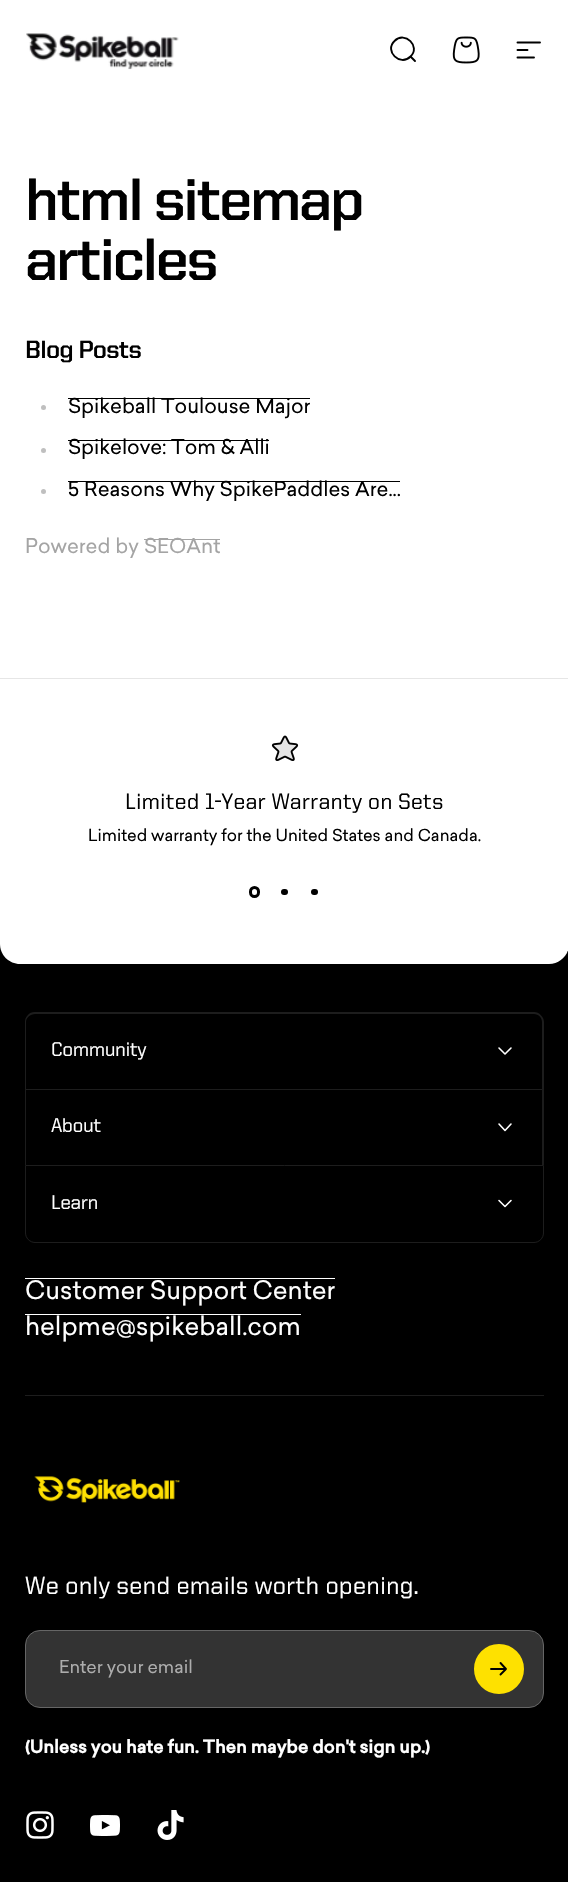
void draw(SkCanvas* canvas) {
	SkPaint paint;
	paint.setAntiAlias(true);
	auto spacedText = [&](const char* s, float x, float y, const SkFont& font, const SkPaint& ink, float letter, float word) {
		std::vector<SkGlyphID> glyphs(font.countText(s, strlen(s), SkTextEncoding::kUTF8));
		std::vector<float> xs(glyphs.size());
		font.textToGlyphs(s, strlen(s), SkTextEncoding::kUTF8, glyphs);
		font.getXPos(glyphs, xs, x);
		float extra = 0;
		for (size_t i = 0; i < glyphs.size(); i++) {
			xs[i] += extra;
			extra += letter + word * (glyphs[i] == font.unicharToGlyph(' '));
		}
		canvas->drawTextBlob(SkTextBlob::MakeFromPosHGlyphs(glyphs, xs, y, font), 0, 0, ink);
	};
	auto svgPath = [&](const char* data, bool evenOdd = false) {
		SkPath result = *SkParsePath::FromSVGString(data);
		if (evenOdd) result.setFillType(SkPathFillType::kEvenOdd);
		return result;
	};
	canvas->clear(0xffffffff);
	canvas->drawImageRect(SkImages::DeferredFromEncodedData(SkData::MakeFromFileName("img1.png")), SkRect::MakeXYWH(26, 33, 153, 37), SkSamplingOptions());
	paint.setStroke(true);
	paint.setStrokeWidth(1.9);
	paint.setStrokeCap(SkPaint::kRound_Cap);
	paint.setColor(0xff000000);
	canvas->drawPath(svgPath("M415 61L410.5 56.5M410.5 56.5C421 46.5 405 30.5 394.5 41C384 51 400 67 410.5 56.5Z"), paint);
	canvas->drawImageRect(SkImages::DeferredFromEncodedData(SkData::MakeFromFileName("img2.png")), SkRect::MakeXYWH(452, 36, 28, 28), SkSamplingOptions());
	canvas->drawPath(svgPath("M517.5 42.5H540M517.5 50H527.5M517.5 57.5H534"), paint);
	SkFont f1(fontMgr->matchFamilyStyle("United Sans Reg", SkFontStyle::Bold()), 60);
	f1.setSubpixel(true);
	paint.setStroke(false);
	spacedText("html sitemap", 25, 220, f1, paint, -2.4, 0);
	spacedText("articles", 25, 280, f1, paint, -2.4, 0);
	SkFont f2(fontMgr->matchFamilyStyle("United Sans Reg", SkFontStyle::Bold()), 25);
	f2.setSubpixel(true);
	spacedText("Blog Posts", 25, 358, f2, paint, -0.75, 0);
	paint.setColor(0xffbfbfbf);
	canvas->drawCircle(43.5, 407.5, 2.5, paint);
	paint.setColor(0xff000000);
	canvas->drawRect(SkRect::MakeXYWH(68, 398, 242, 1), paint);
	SkFont f3(fontMgr->matchFamilyStyle("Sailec", SkFontStyle::Normal()), 20);
	f3.setSubpixel(true);
	canvas->drawString("Spikeball Toulouse Major", 68, 413, f3, paint);
	paint.setColor(0xffbfbfbf);
	canvas->drawCircle(43.5, 450.5, 2.5, paint);
	paint.setColor(0xff000000);
	canvas->drawRect(SkRect::MakeXYWH(68, 440, 201, 1), paint);
	canvas->drawString("Spikelove: Tom & Alli", 68, 454, f3, paint);
	paint.setColor(0xffbfbfbf);
	canvas->drawCircle(43.5, 491.5, 2.5, paint);
	paint.setColor(0xff000000);
	canvas->drawRect(SkRect::MakeXYWH(68, 481, 332, 1), paint);
	canvas->drawString("5 Reasons Why SpikePaddles Are...", 68, 496, f3, paint);
	paint.setColor(0xffa4a4a4);
	canvas->drawString("Powered by", 25, 553, f3, paint);
	canvas->drawRect(SkRect::MakeXYWH(144, 539, 76, 1), paint);
	canvas->drawString("SEOAnt", 144, 553, f3, paint);
	paint.setColor(0xff000000);
	canvas->drawRect(SkRect::MakeXYWH(0, 1869, 568, 13), paint);
	canvas->drawPath(svgPath("M0 944H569V1869C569 1880 560 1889 549 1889H20C9 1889 0 1880 0 1869Z"), paint);
	paint.setColor(0xffffffff);
	canvas->drawPath(svgPath("M0 678H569V944C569 955 560 964 549 964H20C9 964 0 955 0 944Z"), paint);
	paint.setColor(0xffe6e6e6);
	canvas->drawRect(SkRect::MakeXYWH(0, 678, 568, 1), paint);
	canvas->drawImageRect(SkImages::DeferredFromEncodedData(SkData::MakeFromFileName("img3.png")), SkRect::MakeXYWH(271, 735, 28, 26), SkSamplingOptions());
	SkFont f4(fontMgr->matchFamilyStyle("United Sans Reg", SkFontStyle(500, SkFontStyle::kNormal_Width, SkFontStyle::kUpright_Slant)), 22.5);
	f4.setSubpixel(true);
	paint.setColor(0xff000000);
	canvas->drawString("Limited 1-Year Warranty on Sets", 125, 809, f4, paint);
	SkFont f5(fontMgr->matchFamilyStyle("Sailec", SkFontStyle::Normal()), 16.25);
	f5.setSubpixel(true);
	canvas->drawString("Limited warranty for the United States and Canada.", 88, 841, f5, paint);
	paint.setStroke(true);
	paint.setStrokeWidth(3);
	paint.setStrokeCap(SkPaint::kButt_Cap);
	canvas->drawRoundRect(SkRect::MakeXYWH(250.5, 887.5, 8, 9), 4, 4, paint);
	paint.setStroke(false);
	canvas->drawRoundRect(SkRect::MakeXYWH(281, 889, 7, 6), 3, 3, paint);
	canvas->drawRoundRect(SkRect::MakeXYWH(311, 889, 7, 6), 3, 3, paint);
	paint.setColor(0xff1d1d1d);
	canvas->drawPath(svgPath("M35 1012H534C539 1012 544 1017 544 1022V1089H25V1022C25 1017 29 1012 35 1012ZM35 1014H534C539 1014 542 1018 542 1022V1089H26V1022C26 1018 30 1014 35 1014Z", true), paint);
	SkFont f6(fontMgr->matchFamilyStyle("United Sans Reg", SkFontStyle(500, SkFontStyle::kNormal_Width, SkFontStyle::kUpright_Slant)), 20);
	f6.setSubpixel(true);
	paint.setColor(0xffffffff);
	spacedText("Community", 51, 1056, f6, paint, -0.5, 0);
	paint.setStroke(true);
	paint.setStrokeWidth(1.6);
	paint.setStrokeCap(SkPaint::kRound_Cap);
	paint.setStrokeJoin(SkPaint::kRound_Join);
	canvas->drawPath(svgPath("M499 1048L505 1054L511 1048"), paint);
	paint.setStroke(false);
	paint.setColor(0xff1d1d1d);
	canvas->drawPath(svgPath("M25 1089H544L542 1090H26Z"), paint);
	paint.setColor(0x1cffffff);
	canvas->drawPath(svgPath("M544 1089V1165H542V1090Z"), paint);
	canvas->drawPath(svgPath("M25 1165V1089L26 1090V1165Z"), paint);
	paint.setColor(0xffffffff);
	spacedText("About", 51, 1132, f6, paint, -0.5, 0);
	paint.setStroke(true);
	canvas->drawPath(svgPath("M499 1124L505 1130.5L511 1124"), paint);
	paint.setStrokeWidth(1);
	paint.setStrokeCap(SkPaint::kButt_Cap);
	paint.setStrokeJoin(SkPaint::kMiter_Join);
	paint.setColor(0xff1d1d1d);
	canvas->drawPath(svgPath("M25.5 1165.5H543.5V1233C543.5 1238 539 1242.5 534 1242.5H35C30 1242.5 25.5 1238 25.5 1233Z"), paint);
	paint.setStroke(false);
	paint.setColor(0xffffffff);
	spacedText("Learn", 51, 1209, f6, paint, -0.5, 0);
	paint.setStroke(true);
	paint.setStrokeWidth(1.6);
	paint.setStrokeCap(SkPaint::kRound_Cap);
	paint.setStrokeJoin(SkPaint::kRound_Join);
	canvas->drawPath(svgPath("M499 1200.5L505 1206.5L511 1200.5"), paint);
	paint.setStroke(false);
	canvas->drawRect(SkRect::MakeXYWH(25, 1278, 310, 1), paint);
	SkFont f7(fontMgr->matchFamilyStyle("Sailec", SkFontStyle::Normal()), 25);
	f7.setSubpixel(true);
	canvas->drawString("Customer Support Center", 25, 1299, f7, paint);
	canvas->drawRect(SkRect::MakeXYWH(25, 1314, 276, 1), paint);
	canvas->drawString("helpme@spikeball.com", 25, 1335, f7, paint);
	paint.setColor(0xff1d1d1d);
	canvas->drawRect(SkRect::MakeXYWH(25, 1395, 519, 1), paint);
	canvas->drawImageRect(SkImages::DeferredFromEncodedData(SkData::MakeFromFileName("img4.png")), SkRect::MakeXYWH(34, 1476, 146, 27), SkSamplingOptions());
	SkFont f8(fontMgr->matchFamilyStyle("United Sans Reg", SkFontStyle(500, SkFontStyle::kNormal_Width, SkFontStyle::kUpright_Slant)), 25);
	f8.setSubpixel(true);
	paint.setColor(0xffffffff);
	canvas->drawString("We only send emails worth opening.", 25, 1594, f8, paint);
	paint.setColor(0xff333333);
	canvas->drawRoundRect(SkRect::MakeXYWH(25.5, 1630.5, 518, 77), 14.5, 14.5, paint);
	paint.setStroke(true);
	paint.setStrokeWidth(1);
	paint.setStrokeCap(SkPaint::kButt_Cap);
	paint.setStrokeJoin(SkPaint::kMiter_Join);
	paint.setColor(0xff666666);
	canvas->drawRoundRect(SkRect::MakeXYWH(25.5, 1630.5, 518, 77), 14.5, 14.5, paint);
	SkFont f9(fontMgr->matchFamilyStyle("Sailec", SkFontStyle::Normal()), 17.5);
	f9.setSubpixel(true);
	paint.setStroke(false);
	paint.setColor(0xffadadad);
	canvas->drawString("Enter your email", 59, 1673, f9, paint);
	paint.setColor(0xfffee100);
	canvas->drawCircle(499, 1669, 23.5, paint);
	paint.setStroke(true);
	paint.setStrokeWidth(3);
	canvas->drawCircle(499, 1669, 23.5, paint);
	paint.setStrokeWidth(1.9);
	paint.setStrokeCap(SkPaint::kRound_Cap);
	paint.setStrokeJoin(SkPaint::kRound_Join);
	paint.setColor(0xff000000);
	canvas->drawPath(svgPath("M491 1669H506M506 1669L500.5 1663M506 1669L500.5 1674.5"), paint);
	SkFont f10(fontMgr->matchFamilyStyle("Sailec", SkFontStyle::Bold()), 17.5);
	f10.setSubpixel(true);
	paint.setStroke(false);
	paint.setColor(0xffffffff);
	canvas->drawString("(Unless you hate fun. Then maybe don't sign up.)", 25, 1753, f10, paint);
	canvas->drawImageRect(SkImages::DeferredFromEncodedData(SkData::MakeFromFileName("img5.png")), SkRect::MakeXYWH(26, 1811, 28, 28), SkSamplingOptions());
	canvas->drawImageRect(SkImages::DeferredFromEncodedData(SkData::MakeFromFileName("img6.png")), SkRect::MakeXYWH(90, 1815, 30, 21), SkSamplingOptions());
	canvas->drawImageRect(SkImages::DeferredFromEncodedData(SkData::MakeFromFileName("img7.png")), SkRect::MakeXYWH(157, 1810, 27, 30), SkSamplingOptions());
}
